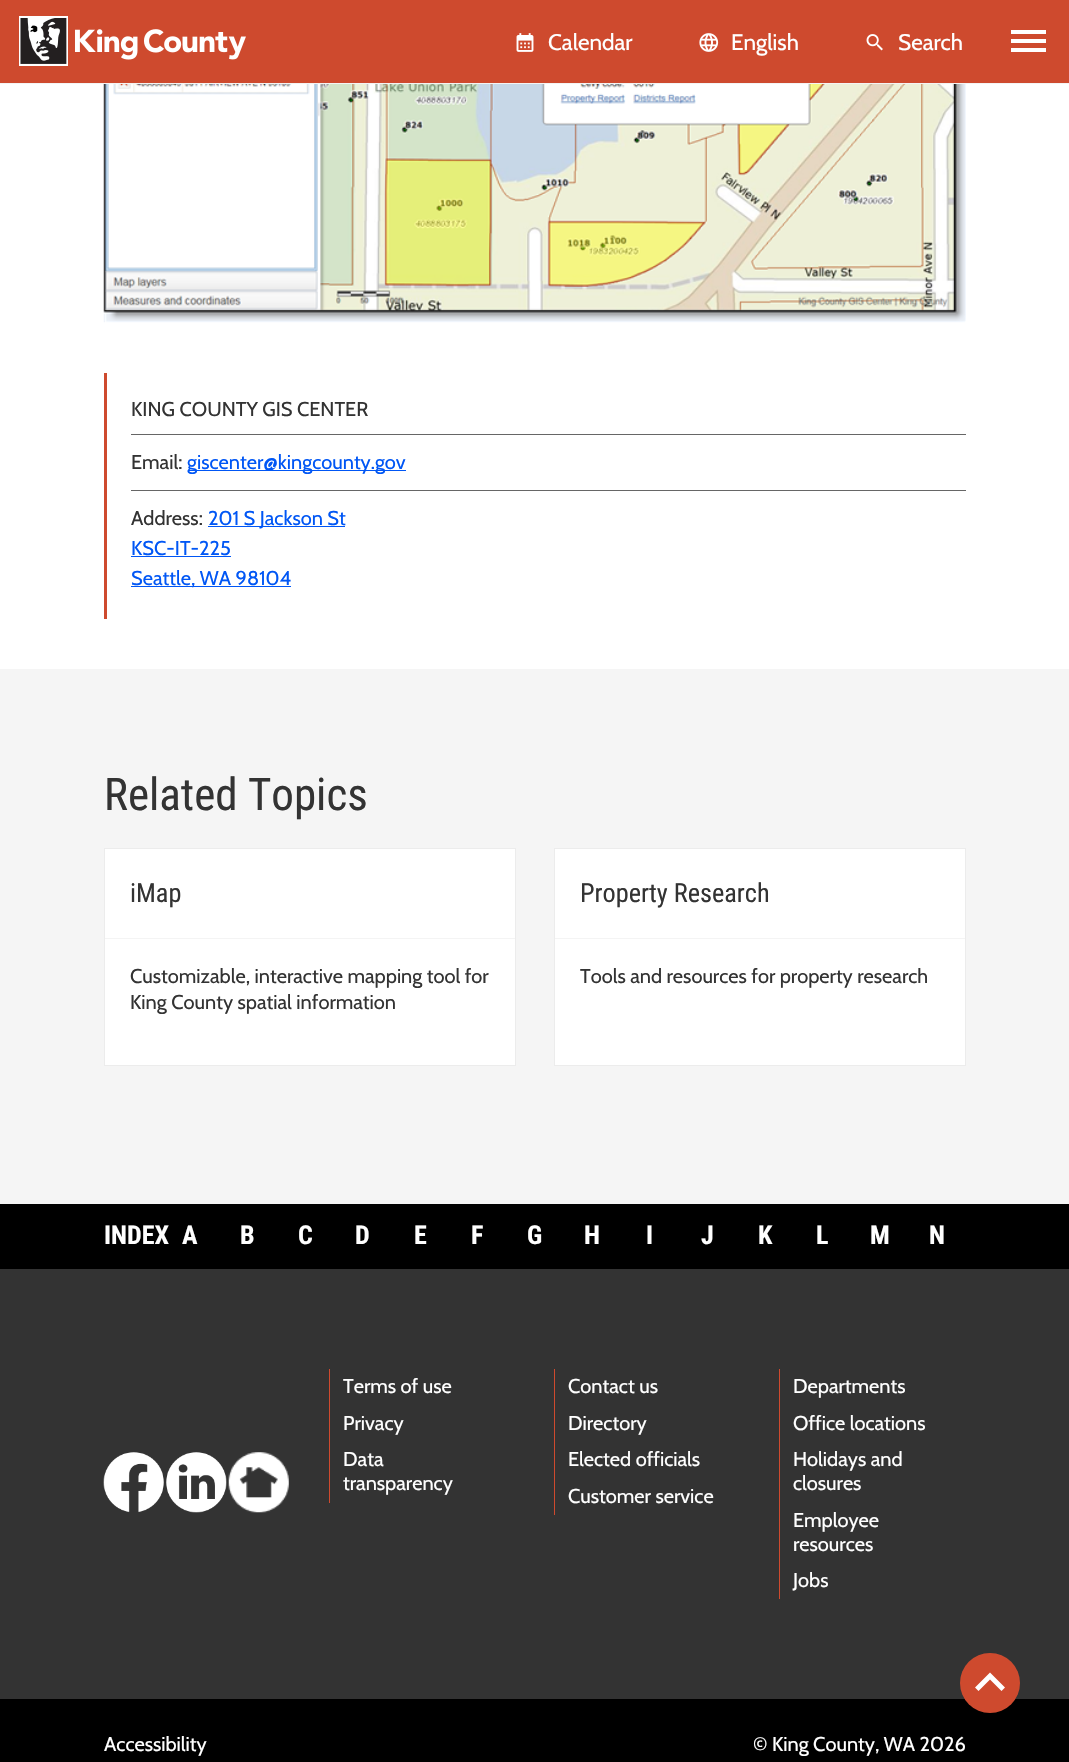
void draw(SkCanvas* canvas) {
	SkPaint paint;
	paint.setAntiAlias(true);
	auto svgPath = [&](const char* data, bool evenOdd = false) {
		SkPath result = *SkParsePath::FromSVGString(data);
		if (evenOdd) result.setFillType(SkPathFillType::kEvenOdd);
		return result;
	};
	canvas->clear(0xffffffff);
	paint.setColor(0xffce4a2e);
	canvas->drawRect(SkRect::MakeXYWH(0, 0, 1069, 83), paint);
	paint.setColor(0xfff4f4f4);
	canvas->drawRect(SkRect::MakeXYWH(0, 83, 1069, 1), paint);
	canvas->drawImageRect(SkImages::DeferredFromEncodedData(SkData::MakeFromFileName("img1.png")), SkRect::MakeXYWH(19, 16, 227, 50), SkSamplingOptions());
	canvas->drawImageRect(SkImages::DeferredFromEncodedData(SkData::MakeFromFileName("img2.png")), SkRect::MakeXYWH(516, 33, 18, 19), SkSamplingOptions());
	SkFont f1(fontMgr->matchFamilyStyle("Cabin", SkFontStyle::Normal()), 22.5);
	f1.setSubpixel(true);
	paint.setColor(0xffffffff);
	canvas->drawString("Calendar", 548, 50, f1, paint);
	canvas->drawImageRect(SkImages::DeferredFromEncodedData(SkData::MakeFromFileName("img3.png")), SkRect::MakeXYWH(699, 33, 20, 19), SkSamplingOptions());
	canvas->drawString("English", 731, 50, f1, paint);
	canvas->drawImageRect(SkImages::DeferredFromEncodedData(SkData::MakeFromFileName("img4.png")), SkRect::MakeXYWH(866, 34, 17, 17), SkSamplingOptions());
	canvas->drawString("Search", 898, 50, f1, paint);
	canvas->drawRect(SkRect::MakeXYWH(1011, 30, 35, 4), paint);
	canvas->drawRect(SkRect::MakeXYWH(1011, 39, 35, 4), paint);
	canvas->drawRect(SkRect::MakeXYWH(1011, 48, 35, 4), paint);
	canvas->drawImageRect(SkImages::DeferredFromEncodedData(SkData::MakeFromFileName("img5.png")), SkRect::MakeXYWH(103, 84, 863, 239), SkSamplingOptions());
	paint.setColor(0xffce4a2e);
	canvas->drawRect(SkRect::MakeXYWH(104, 373, 3, 246), paint);
	paint.setColor(0xff666666);
	canvas->drawRect(SkRect::MakeXYWH(131, 434, 835, 1), paint);
	SkFont f2(fontMgr->matchFamilyStyle("Cabin", SkFontStyle::Normal()), 20);
	f2.setSubpixel(true);
	paint.setColor(0xff333333);
	canvas->drawString("KING COUNTY GIS CENTER", 131, 416, f2, paint);
	canvas->drawString("Email:", 131, 469, f2, paint);
	paint.setColor(0xff0056f5);
	canvas->drawRect(SkRect::MakeXYWH(188, 470, 218, 1), paint);
	canvas->drawString("giscenter@kingcounty.gov", 187, 469, f2, paint);
	paint.setColor(0xff666666);
	canvas->drawRect(SkRect::MakeXYWH(131, 490, 835, 1), paint);
	paint.setColor(0xff333333);
	canvas->drawString("Address:", 131, 525, f2, paint);
	paint.setColor(0xff0056f5);
	canvas->drawRect(SkRect::MakeXYWH(208, 526, 137, 1), paint);
	canvas->drawString("201 S Jackson St", 208, 525, f2, paint);
	canvas->drawString("KSC-IT-225", 131, 555, f2, paint);
	canvas->drawRect(SkRect::MakeXYWH(131, 556, 100, 1), paint);
	canvas->drawRect(SkRect::MakeXYWH(131, 586, 160, 1), paint);
	canvas->drawString("Seattle, WA 98104", 131, 585, f2, paint);
	paint.setColor(0xfff5f5f5);
	canvas->drawRect(SkRect::MakeXYWH(0, 669, 1069, 535), paint);
	SkFont f3(fontMgr->matchFamilyStyle("Roboto Condensed", SkFontStyle::Normal()), 45);
	f3.setSubpixel(true);
	paint.setColor(0xff333333);
	canvas->drawString("Related Topics", 104, 810, f3, paint);
	paint.setColor(0xffffffff);
	canvas->drawRect(SkRect::MakeXYWH(104.5, 848.5, 411, 217), paint);
	paint.setStroke(true);
	paint.setStrokeWidth(1);
	paint.setColor(0xffececec);
	canvas->drawRect(SkRect::MakeXYWH(104.5, 848.5, 411, 217), paint);
	paint.setStroke(false);
	paint.setColor(0xfff4f4f4);
	canvas->drawRect(SkRect::MakeXYWH(105, 938, 410, 1), paint);
	SkFont f4(fontMgr->matchFamilyStyle("Roboto Condensed", SkFontStyle::Normal()), 26.25);
	f4.setSubpixel(true);
	paint.setColor(0xff333333);
	canvas->drawString("iMap", 130, 902, f4, paint);
	canvas->drawString("Customizable, interactive mapping tool for", 130, 983, f2, paint);
	canvas->drawString("King County spatial information", 130, 1009, f2, paint);
	paint.setColor(0xffffffff);
	canvas->drawRect(SkRect::MakeXYWH(554.5, 848.5, 411, 217), paint);
	paint.setStroke(true);
	paint.setColor(0xffececec);
	canvas->drawRect(SkRect::MakeXYWH(554.5, 848.5, 411, 217), paint);
	paint.setStroke(false);
	paint.setColor(0xfff4f4f4);
	canvas->drawRect(SkRect::MakeXYWH(555, 938, 410, 1), paint);
	paint.setColor(0xff333333);
	canvas->drawString("Property Research", 580, 902, f4, paint);
	canvas->drawString("Tools and resources for property research", 580, 983, f2, paint);
	paint.setColor(0xff000000);
	canvas->drawRect(SkRect::MakeXYWH(0, 1204, 1069, 65), paint);
	SkFont f5(fontMgr->matchFamilyStyle("Roboto Condensed", SkFontStyle::Bold()), 26);
	f5.setSubpixel(true);
	paint.setColor(0xffffffff);
	canvas->drawString("INDEX", 104, 1244, f5, paint);
	canvas->drawString("A", 182, 1244, f5, paint);
	canvas->drawString("B", 240, 1244, f5, paint);
	canvas->drawString("C", 298, 1244, f5, paint);
	canvas->drawString("D", 355, 1244, f5, paint);
	canvas->drawString("E", 414, 1244, f5, paint);
	canvas->drawString("F", 471, 1244, f5, paint);
	canvas->drawString("G", 527, 1244, f5, paint);
	canvas->drawString("H", 584, 1244, f5, paint);
	canvas->drawString("I", 646, 1244, f5, paint);
	canvas->drawString("J", 701, 1244, f5, paint);
	canvas->drawString("K", 758, 1244, f5, paint);
	canvas->drawString("L", 816, 1244, f5, paint);
	canvas->drawString("M", 870, 1244, f5, paint);
	canvas->drawString("N", 929, 1244, f5, paint);
	paint.setColor(0xff333333);
	canvas->drawRect(SkRect::MakeXYWH(0, 1269, 1069, 430), paint);
	canvas->drawImageRect(SkImages::DeferredFromEncodedData(SkData::MakeFromFileName("img6.png")), SkRect::MakeXYWH(103, 1452, 61, 61), SkSamplingOptions());
	canvas->drawImageRect(SkImages::DeferredFromEncodedData(SkData::MakeFromFileName("img7.png")), SkRect::MakeXYWH(166, 1452, 61, 61), SkSamplingOptions());
	canvas->drawImageRect(SkImages::DeferredFromEncodedData(SkData::MakeFromFileName("img8.png")), SkRect::MakeXYWH(228, 1452, 61, 61), SkSamplingOptions());
	paint.setColor(0xffce4a2e);
	canvas->drawRect(SkRect::MakeXYWH(329, 1369, 1, 134), paint);
	paint.setColor(0xffffffff);
	canvas->drawString("Terms of use", 343, 1393, f2, paint);
	canvas->drawString("Privacy", 343, 1430, f2, paint);
	canvas->drawString("Data", 343, 1466, f2, paint);
	canvas->drawString("transparency", 343, 1490, f2, paint);
	paint.setColor(0xffce4a2e);
	canvas->drawRect(SkRect::MakeXYWH(554, 1369, 1, 146), paint);
	paint.setColor(0xffffffff);
	canvas->drawString("Contact us", 568, 1393, f2, paint);
	canvas->drawString("Directory", 568, 1430, f2, paint);
	canvas->drawString("Elected officials", 568, 1466, f2, paint);
	canvas->drawString("Customer service", 568, 1503, f2, paint);
	paint.setColor(0xffce4a2e);
	canvas->drawRect(SkRect::MakeXYWH(779, 1369, 1, 230), paint);
	paint.setColor(0xffffffff);
	canvas->drawString("Departments", 793, 1393, f2, paint);
	canvas->drawString("Office locations", 793, 1430, f2, paint);
	canvas->drawString("Holidays and", 793, 1466, f2, paint);
	canvas->drawString("closures", 793, 1490, f2, paint);
	canvas->drawString("Employee", 793, 1527, f2, paint);
	canvas->drawString("resources", 793, 1551, f2, paint);
	canvas->drawString("Jobs", 793, 1587, f2, paint);
	paint.setColor(0xff000000);
	canvas->drawRect(SkRect::MakeXYWH(0, 1699, 1069, 63), paint);
	paint.setColor(0xffffffff);
	canvas->drawString("Accessibility", 104, 1751, f2, paint);
	canvas->drawString("© King County, WA 2026", 753, 1751, f2, paint);
	paint.setColor(0xffce4a2e);
	canvas->drawCircle(990, 1683, 30, paint);
	paint.setColor(0xffffffff);
	canvas->drawPath(svgPath("M990 1672.5L1005 1687.5L1001.5 1691L990 1679.5L978.5 1691L975 1687.5Z"), paint);
}
